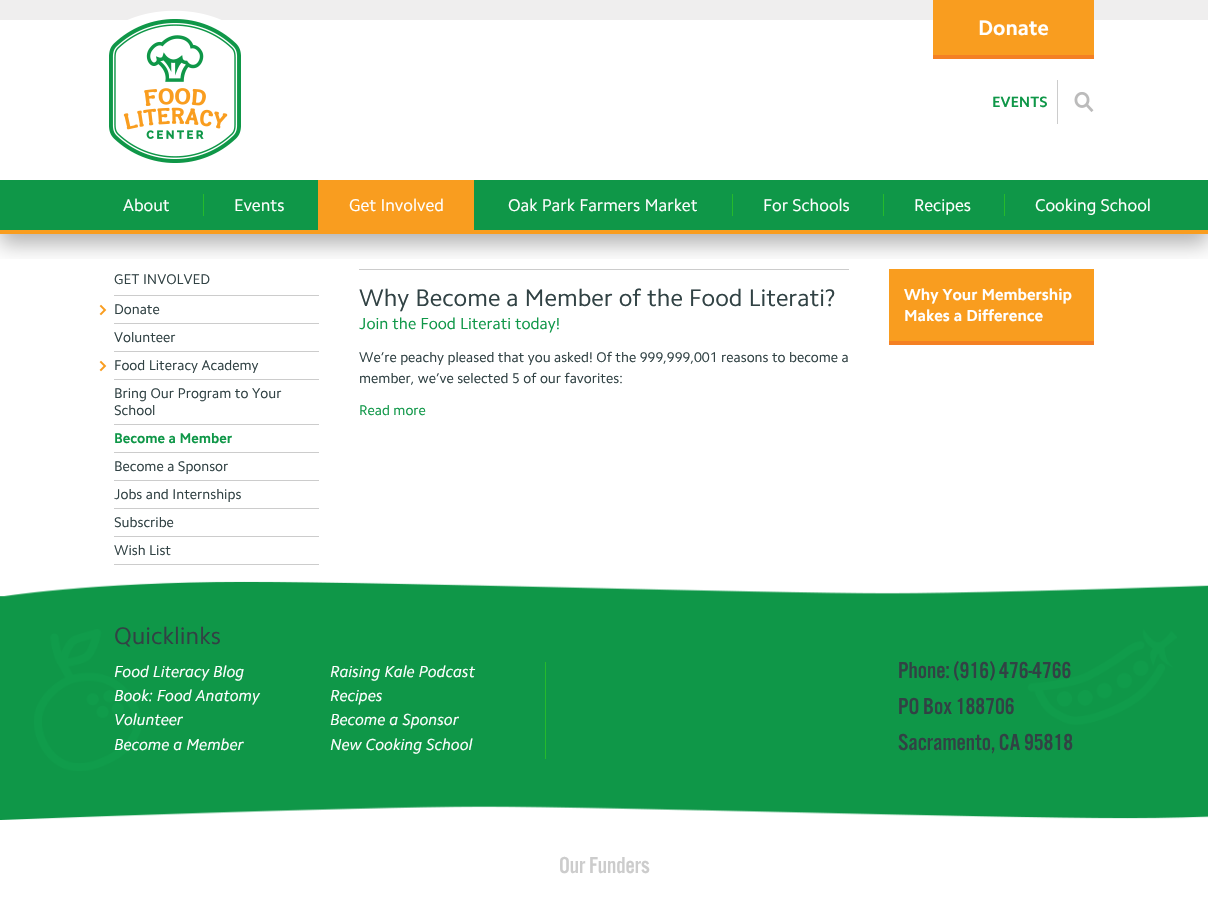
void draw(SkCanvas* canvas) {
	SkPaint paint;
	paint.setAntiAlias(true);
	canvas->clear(0xffffffff);
	paint.setColor(0xffcccccc);
	canvas->drawRect(SkRect::MakeXYWH(359, 269, 490, 1), paint);
	paint.setColor(0xfff99d1f);
	canvas->drawRect(SkRect::MakeXYWH(889, 269, 205, 72), paint);
	canvas->save();
	canvas->clipRect(SkRect::MakeXYWH(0, 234, 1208, 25));
	paint.setColor(0x4d000000);
	paint.setMaskFilter(SkMaskFilter::MakeBlur(kNormal_SkBlurStyle, 10));
	canvas->drawRect(SkRect::MakeXYWH(0, 10, 1208, 234), paint);
	paint.setMaskFilter(nullptr);
	canvas->restore();
	paint.setColor(0xffefeeee);
	canvas->drawRect(SkRect::MakeXYWH(0, 0, 1208, 20), paint);
	paint.setColor(0xfff99d1f);
	canvas->drawRect(SkRect::MakeXYWH(933, 0, 161, 55), paint);
	paint.setColor(0xfff48023);
	canvas->drawRect(SkRect::MakeXYWH(933, 55, 161, 4), paint);
	SkFont f1(fontMgr->matchFamilyStyle("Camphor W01", SkFontStyle::Bold()), 21);
	f1.setSubpixel(true);
	paint.setColor(0xffffffff);
	canvas->drawString("Donate", 978, 35, f1, paint);
	paint.setColor(0xffcccccc);
	canvas->drawRect(SkRect::MakeXYWH(1057, 80, 1, 44), paint);
	SkFont f2(fontMgr->matchFamilyStyle("Camphor W01", SkFontStyle::Bold()), 15);
	f2.setSubpixel(true);
	paint.setColor(0xff0f9748);
	canvas->drawString("EVENTS", 992, 107, f2, paint);
	canvas->drawImageRect(SkImages::DeferredFromEncodedData(SkData::MakeFromFileName("img1.png")), SkRect::MakeXYWH(1074, 92, 20, 20), SkSamplingOptions());
	canvas->drawImageRect(SkImages::DeferredFromEncodedData(SkData::MakeFromFileName("img2.png")), SkRect::MakeXYWH(109, 10, 132, 153), SkSamplingOptions());
	canvas->drawRect(SkRect::MakeXYWH(0, 180, 1208, 50), paint);
	paint.setColor(0xfff99d1f);
	canvas->drawRect(SkRect::MakeXYWH(0, 230, 1208, 4), paint);
	SkFont f3(fontMgr->matchFamilyStyle("Camphor W01", SkFontStyle::Normal()), 17);
	f3.setSubpixel(true);
	paint.setColor(0xffffffff);
	canvas->drawString("About", 123, 211, f3, paint);
	paint.setColor(0xff25ba2c);
	canvas->drawRect(SkRect::MakeXYWH(203, 194, 1, 22), paint);
	paint.setColor(0xffffffff);
	canvas->drawString("Events", 234, 211, f3, paint);
	paint.setColor(0xfff99d1f);
	canvas->drawRect(SkRect::MakeXYWH(318, 180, 156, 50), paint);
	paint.setColor(0xffffffff);
	canvas->drawString("Get Involved", 349, 211, f3, paint);
	canvas->drawString("Oak Park Farmers Market", 508, 211, f3, paint);
	paint.setColor(0xff25ba2c);
	canvas->drawRect(SkRect::MakeXYWH(732, 194, 1, 22), paint);
	paint.setColor(0xffffffff);
	canvas->drawString("For Schools", 763, 211, f3, paint);
	paint.setColor(0xff25ba2c);
	canvas->drawRect(SkRect::MakeXYWH(883, 194, 1, 22), paint);
	paint.setColor(0xffffffff);
	canvas->drawString("Recipes", 914, 211, f3, paint);
	paint.setColor(0xff25ba2c);
	canvas->drawRect(SkRect::MakeXYWH(1004, 194, 1, 22), paint);
	paint.setColor(0xffffffff);
	canvas->drawString("Cooking School", 1035, 211, f3, paint);
	paint.setColor(0xffcccccc);
	canvas->drawRect(SkRect::MakeXYWH(114, 295, 205, 1), paint);
	SkFont f4(fontMgr->matchFamilyStyle("Camphor W01", SkFontStyle::Normal()), 14);
	f4.setSubpixel(true);
	paint.setColor(0xff314244);
	canvas->drawString("GET INVOLVED", 114, 284, f4, paint);
	paint.setColor(0xffcccccc);
	canvas->drawRect(SkRect::MakeXYWH(114, 323, 205, 1), paint);
	canvas->drawImageRect(SkImages::DeferredFromEncodedData(SkData::MakeFromFileName("img3.png")), SkRect::MakeXYWH(99, 304, 8, 12), SkSamplingOptions());
	paint.setColor(0xff314244);
	canvas->drawString("Donate", 114, 314, f4, paint);
	paint.setColor(0xffcccccc);
	canvas->drawRect(SkRect::MakeXYWH(114, 351, 205, 1), paint);
	paint.setColor(0xff314244);
	canvas->drawString("Volunteer", 114, 342, f4, paint);
	paint.setColor(0xffcccccc);
	canvas->drawRect(SkRect::MakeXYWH(114, 379, 205, 1), paint);
	canvas->drawImageRect(SkImages::DeferredFromEncodedData(SkData::MakeFromFileName("img3.png")), SkRect::MakeXYWH(99, 360, 8, 12), SkSamplingOptions());
	paint.setColor(0xff314244);
	canvas->drawString("Food Literacy Academy", 114, 370, f4, paint);
	paint.setColor(0xffcccccc);
	canvas->drawRect(SkRect::MakeXYWH(114, 424, 205, 1), paint);
	paint.setColor(0xff314244);
	canvas->drawString("Bring Our Program to Your", 114, 398, f4, paint);
	canvas->drawString("School", 114, 415, f4, paint);
	paint.setColor(0xffcccccc);
	canvas->drawRect(SkRect::MakeXYWH(114, 452, 205, 1), paint);
	SkFont f5(fontMgr->matchFamilyStyle("Camphor W01", SkFontStyle::Bold()), 14);
	f5.setSubpixel(true);
	paint.setColor(0xff0f9748);
	canvas->drawString("Become a Member", 114, 443, f5, paint);
	paint.setColor(0xffcccccc);
	canvas->drawRect(SkRect::MakeXYWH(114, 480, 205, 1), paint);
	paint.setColor(0xff314244);
	canvas->drawString("Become a Sponsor", 114, 471, f4, paint);
	paint.setColor(0xffcccccc);
	canvas->drawRect(SkRect::MakeXYWH(114, 508, 205, 1), paint);
	paint.setColor(0xff314244);
	canvas->drawString("Jobs and Internships", 114, 499, f4, paint);
	paint.setColor(0xffcccccc);
	canvas->drawRect(SkRect::MakeXYWH(114, 536, 205, 1), paint);
	paint.setColor(0xff314244);
	canvas->drawString("Subscribe", 114, 527, f4, paint);
	paint.setColor(0xffcccccc);
	canvas->drawRect(SkRect::MakeXYWH(114, 564, 205, 1), paint);
	paint.setColor(0xff314244);
	canvas->drawString("Wish List", 114, 555, f4, paint);
	SkFont f6(fontMgr->matchFamilyStyle("Camphor W01", SkFontStyle::Normal()), 24);
	f6.setSubpixel(true);
	canvas->drawString("Why Become a Member of the Food Literati?", 359, 306, f6, paint);
	SkFont f7(fontMgr->matchFamilyStyle("Camphor W01", SkFontStyle::Normal()), 16);
	f7.setSubpixel(true);
	paint.setColor(0xff0f9748);
	canvas->drawString("Join the Food Literati today!", 359, 329, f7, paint);
	paint.setColor(0xff314244);
	canvas->drawString("We’re peachy pleased that you asked! Of the 999,999,001 reasons to become a", 359, 362, f4, paint);
	canvas->drawString("member, we’ve selected 5 of our favorites:", 359, 383, f4, paint);
	paint.setColor(0xff0f9748);
	canvas->drawString("Read more", 359, 415, f4, paint);
	paint.setColor(0xfff48023);
	canvas->drawRect(SkRect::MakeXYWH(889, 341, 205, 4), paint);
	SkFont f8(fontMgr->matchFamilyStyle("Camphor W01", SkFontStyle::Bold()), 16);
	f8.setSubpixel(true);
	paint.setColor(0xffffffff);
	canvas->drawString("Why Your Membership", 904, 300, f8, paint);
	canvas->drawString("Makes a Difference", 904, 321, f8, paint);
	paint.setColor(0xff0f9748);
	canvas->drawRect(SkRect::MakeXYWH(0, 600, 1208, 200), paint);
	canvas->drawImageRect(SkImages::DeferredFromEncodedData(SkData::MakeFromFileName("img4.png")), SkRect::MakeXYWH(34, 629, 1143, 142), SkSamplingOptions());
	canvas->drawImageRect(SkImages::DeferredFromEncodedData(SkData::MakeFromFileName("img5.png")), SkRect::MakeXYWH(0, 581, 1208, 19), SkSamplingOptions());
	paint.setColor(0xff314244);
	canvas->drawString("Quicklinks", 114, 644, f6, paint);
	paint.setColor(0xff25ba2c);
	canvas->drawRect(SkRect::MakeXYWH(545, 662, 1, 97), paint);
	SkFont f9(fontMgr->matchFamilyStyle("Camphor W01", SkFontStyle::Italic()), 16);
	f9.setSubpixel(true);
	paint.setColor(0xffffffff);
	canvas->drawString("Food Literacy Blog", 114, 677, f9, paint);
	canvas->drawString("Raising Kale Podcast", 330, 677, f9, paint);
	canvas->drawString("Book: Food Anatomy", 114, 701, f9, paint);
	canvas->drawString("Recipes", 330, 701, f9, paint);
	canvas->drawString("Volunteer", 114, 725, f9, paint);
	canvas->drawString("Become a Sponsor", 330, 725, f9, paint);
	canvas->drawString("Become a Member", 114, 750, f9, paint);
	canvas->drawString("New Cooking School", 330, 750, f9, paint);
	SkFont f10(fontMgr->matchFamilyStyle("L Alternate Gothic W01", SkFontStyle::Normal()), 24);
	f10.setSubpixel(true);
	paint.setColor(0xff314244);
	canvas->drawString("Phone: (916) 476-4766", 898, 678, f10, paint);
	canvas->drawString("PO Box 188706", 898, 714, f10, paint);
	canvas->drawString("Sacramento, CA 95818", 898, 750, f10, paint);
	canvas->drawImageRect(SkImages::DeferredFromEncodedData(SkData::MakeFromFileName("img6.png")), SkRect::MakeXYWH(0, 800, 1208, 20), SkSamplingOptions());
	paint.setColor(0xffcccccc);
	canvas->drawString("Our Funders", 559, 873, f10, paint);
}
